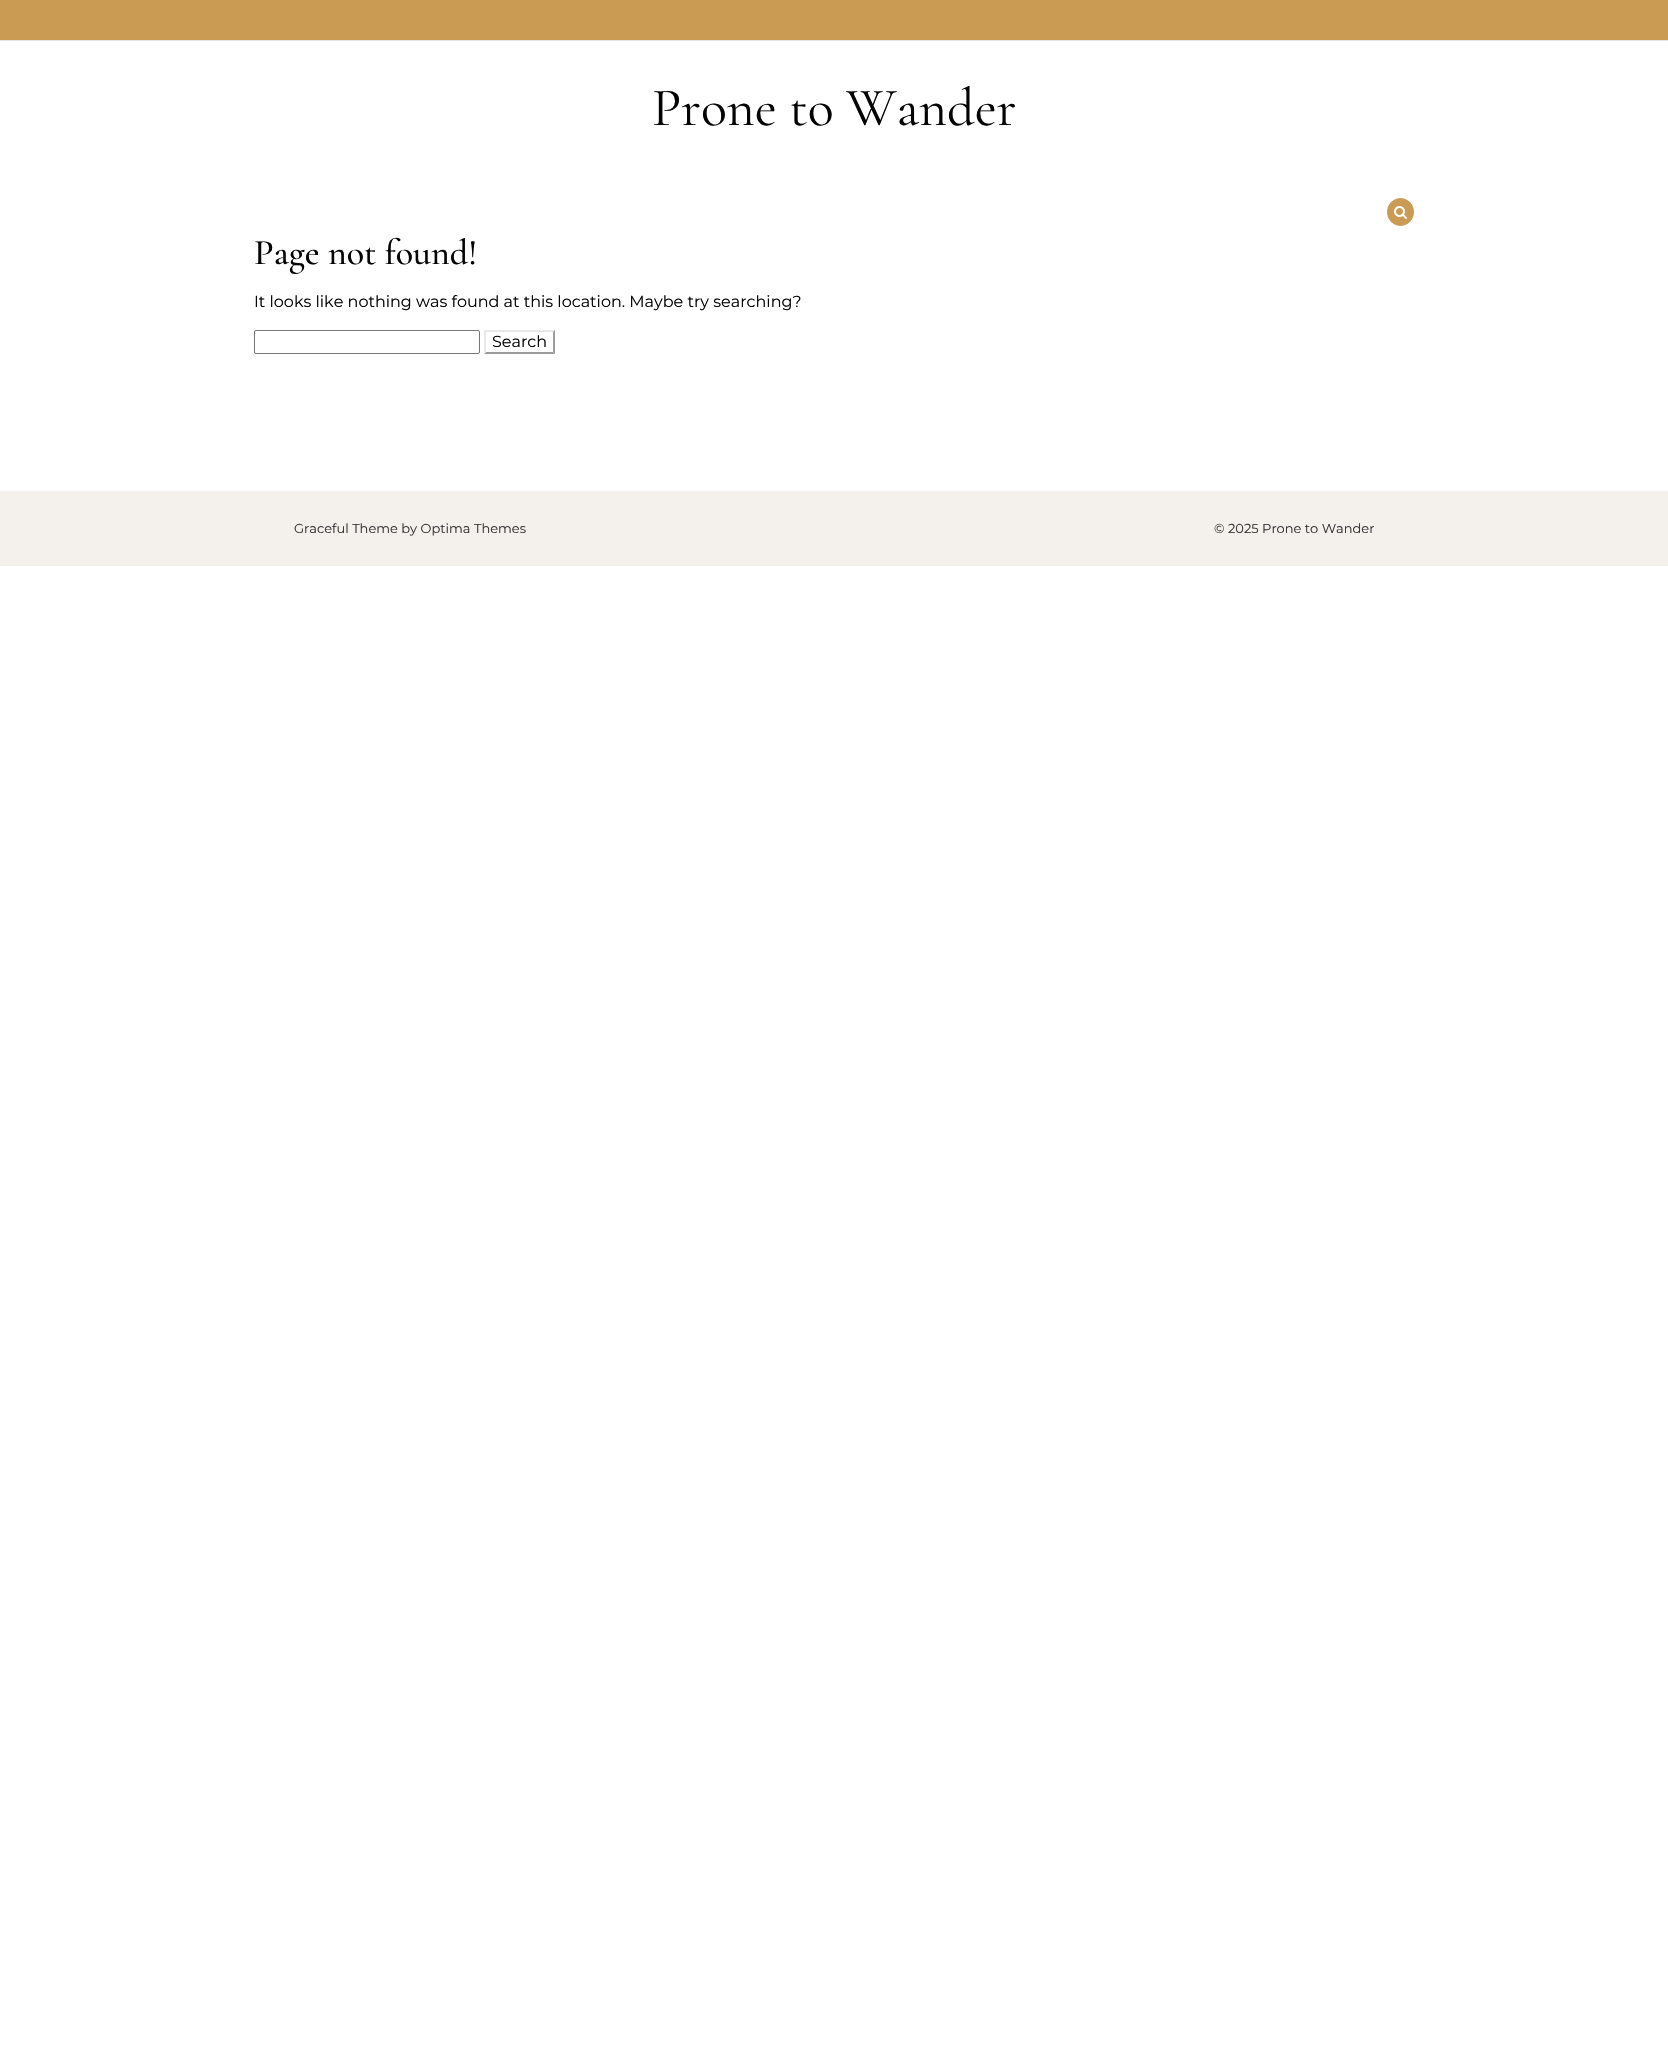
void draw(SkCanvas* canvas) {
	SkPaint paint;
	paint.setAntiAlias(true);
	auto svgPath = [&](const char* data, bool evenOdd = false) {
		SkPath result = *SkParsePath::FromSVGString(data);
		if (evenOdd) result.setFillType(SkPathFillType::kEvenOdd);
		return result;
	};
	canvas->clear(0xffffffff);
	paint.setColor(0xffca9b52);
	canvas->drawRect(SkRect::MakeXYWH(0, 0, 1668, 40), paint);
	paint.setColor(0xffe4e4e4);
	canvas->drawRect(SkRect::MakeXYWH(0, 40, 1668, 1), paint);
	SkFont f1(fontMgr->matchFamilyStyle("Cormorant Garamond", SkFontStyle::Normal()), 54);
	f1.setSubpixel(true);
	paint.setColor(0xff030303);
	canvas->drawString("Prone to Wander", 652, 125, f1, paint);
	paint.setColor(0xffca9b52);
	canvas->drawRoundRect(SkRect::MakeXYWH(1387.5, 198.5, 26, 27), 13, 13, paint);
	paint.setStroke(true);
	paint.setStrokeWidth(1);
	canvas->drawRoundRect(SkRect::MakeXYWH(1387.5, 198.5, 26, 27), 13, 13, paint);
	canvas->drawImageRect(SkImages::DeferredFromEncodedData(SkData::MakeFromFileName("img1.png")), SkRect::MakeXYWH(1394, 206, 13, 13), SkSamplingOptions());
	SkFont f2(fontMgr->matchFamilyStyle("Cormorant Garamond", SkFontStyle(500, SkFontStyle::kNormal_Width, SkFontStyle::kUpright_Slant)), 36);
	f2.setSubpixel(true);
	paint.setStroke(false);
	paint.setColor(0xff030303);
	canvas->drawString("Page not found!", 254, 264, f2, paint);
	SkFont f3(fontMgr->matchFamilyStyle("Montserrat", SkFontStyle(100, SkFontStyle::kNormal_Width, SkFontStyle::kUpright_Slant)), 16);
	f3.setSubpixel(true);
	canvas->drawString("It looks like nothing was found at this location. Maybe try searching?", 254, 307, f3, paint);
	paint.setStroke(true);
	paint.setColor(0xff767676);
	canvas->drawRoundRect(SkRect::MakeXYWH(254.5, 330.5, 225, 23), 1.5, 1.5, paint);
	paint.setStroke(false);
	paint.setColor(0xffe8e8e8);
	canvas->drawPath(svgPath("M484 330H555L553 332H486Z"), paint);
	paint.setColor(0xff9b9b9b);
	canvas->drawPath(svgPath("M555 330V354L553 352V332Z"), paint);
	canvas->drawPath(svgPath("M555 354H484L486 352H553Z"), paint);
	paint.setColor(0xffe8e8e8);
	canvas->drawPath(svgPath("M484 354V330L486 332V352Z"), paint);
	paint.setColor(0xff030303);
	canvas->drawString("Search", 492, 347, f3, paint);
	paint.setColor(0xfff4f1ec);
	canvas->drawRect(SkRect::MakeXYWH(0, 491, 1668, 75), paint);
	SkFont f4(fontMgr->matchFamilyStyle("Montserrat", SkFontStyle(100, SkFontStyle::kNormal_Width, SkFontStyle::kUpright_Slant)), 13);
	f4.setSubpixel(true);
	paint.setColor(0xff333333);
	canvas->drawString("Graceful Theme by Optima Themes", 294, 533, f4, paint);
	canvas->drawString("© 2025 Prone to Wander", 1214, 533, f4, paint);
}
